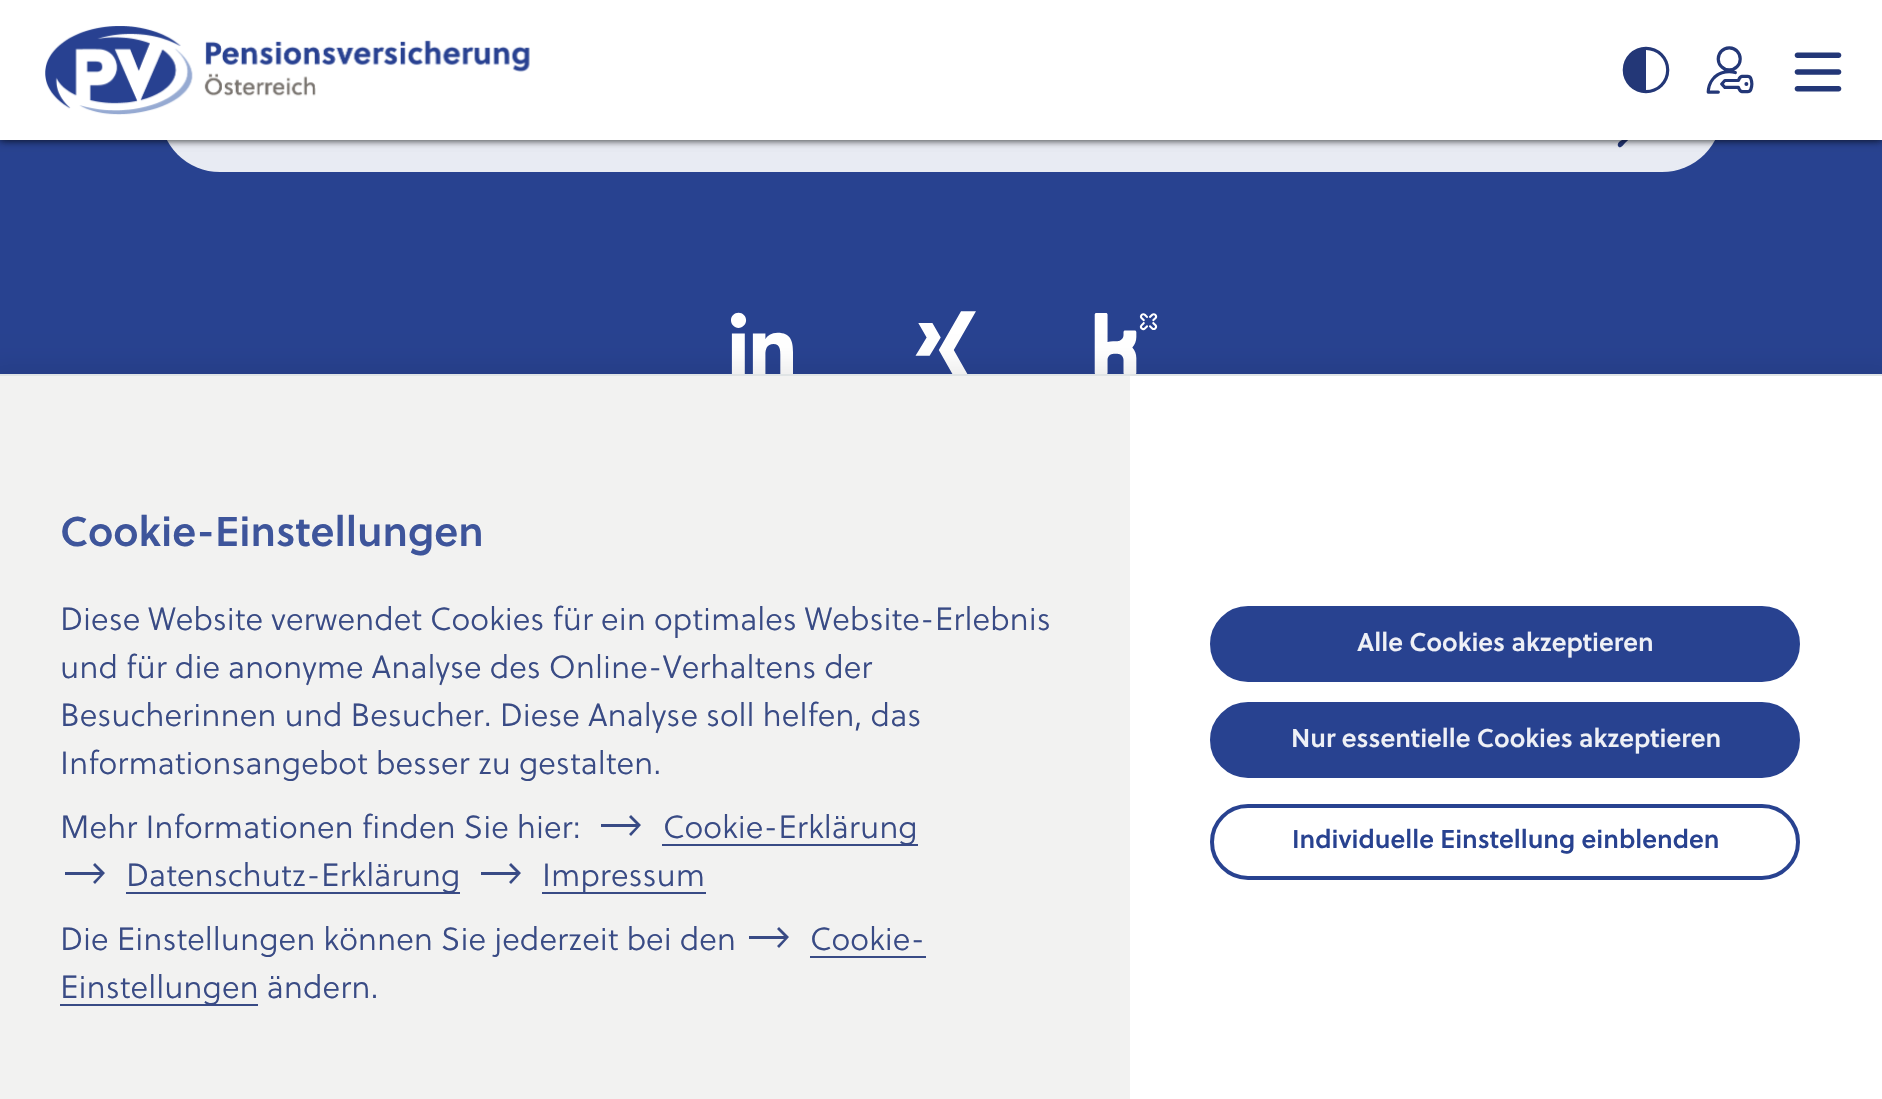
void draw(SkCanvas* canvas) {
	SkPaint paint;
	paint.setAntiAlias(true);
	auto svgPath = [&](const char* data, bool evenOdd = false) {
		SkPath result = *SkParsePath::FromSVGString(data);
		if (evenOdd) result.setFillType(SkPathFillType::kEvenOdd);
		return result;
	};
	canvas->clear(0xff284290);
	paint.setColor(0xffe8ebf3);
	canvas->drawRoundRect(SkRect::MakeXYWH(160, 52, 1562, 120), 60, 60, paint);
	paint.setColor(0xff233777);
	canvas->drawPath(svgPath("M1658 79C1635 79 1622 106 1637 124L1622 140C1620 141 1617 143 1618 146C1620 150 1624 144 1625 143L1641 128C1647 132 1654 135 1661 134C1696 131 1693 79 1658 79ZM1658 129C1629 129 1629 84 1658 84C1688 84 1688 129 1658 129Z"), paint);
	paint.setColor(0x80000000);
	paint.setMaskFilter(SkMaskFilter::MakeBlur(kNormal_SkBlurStyle, 4));
	canvas->drawRect(SkRect::MakeXYWH(0, 0, 1882, 140), paint);
	paint.setMaskFilter(nullptr);
	paint.setMaskFilter(SkMaskFilter::MakeBlur(kNormal_SkBlurStyle, 4));
	canvas->drawRect(SkRect::MakeXYWH(0, 0, 1882, 140), paint);
	paint.setMaskFilter(nullptr);
	paint.setColor(0xffffffff);
	canvas->drawRect(SkRect::MakeXYWH(0, 0, 1882, 140), paint);
	canvas->drawImageRect(SkImages::DeferredFromEncodedData(SkData::MakeFromFileName("img1.png")), SkRect::MakeXYWH(45, 26, 485, 89), SkSamplingOptions());
	canvas->drawImageRect(SkImages::DeferredFromEncodedData(SkData::MakeFromFileName("img2.png")), SkRect::MakeXYWH(1622, 46, 48, 48), SkSamplingOptions());
	canvas->drawImageRect(SkImages::DeferredFromEncodedData(SkData::MakeFromFileName("img3.png")), SkRect::MakeXYWH(1706, 46, 48, 48), SkSamplingOptions());
	canvas->drawImageRect(SkImages::DeferredFromEncodedData(SkData::MakeFromFileName("img4.png")), SkRect::MakeXYWH(1794, 52, 48, 40), SkSamplingOptions());
	canvas->drawImageRect(SkImages::DeferredFromEncodedData(SkData::MakeFromFileName("img5.png")), SkRect::MakeXYWH(731, 312, 62, 62), SkSamplingOptions());
	canvas->drawImageRect(SkImages::DeferredFromEncodedData(SkData::MakeFromFileName("img6.png")), SkRect::MakeXYWH(915, 311, 61, 63), SkSamplingOptions());
	canvas->drawImageRect(SkImages::DeferredFromEncodedData(SkData::MakeFromFileName("img7.png")), SkRect::MakeXYWH(1094, 313, 64, 61), SkSamplingOptions());
	paint.setColor(0x12000000);
	paint.setMaskFilter(SkMaskFilter::MakeBlur(kNormal_SkBlurStyle, 10));
	canvas->drawRect(SkRect::MakeXYWH(-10, 364, 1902, 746), paint);
	paint.setMaskFilter(nullptr);
	paint.setColor(0xffffffff);
	canvas->drawRect(SkRect::MakeXYWH(1130, 376, 752, 723), paint);
	paint.setColor(0xffe0e4e5);
	canvas->drawRect(SkRect::MakeXYWH(0, 374, 1882, 2), paint);
	paint.setColor(0xfff2f2f1);
	canvas->drawRect(SkRect::MakeXYWH(0, 376, 1130, 723), paint);
	SkFont f1(fontMgr->matchFamilyStyle("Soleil", SkFontStyle(600, SkFontStyle::kNormal_Width, SkFontStyle::kUpright_Slant)), 41.6);
	f1.setSubpixel(true);
	paint.setColor(0xff3e559b);
	canvas->drawString("Cookie-Einstellungen", 60, 546, f1, paint);
	SkFont f2(fontMgr->matchFamilyStyle("Soleil", SkFontStyle(300, SkFontStyle::kNormal_Width, SkFontStyle::kUpright_Slant)), 32);
	f2.setSubpixel(true);
	paint.setColor(0xff394b85);
	canvas->drawString("Diese Website verwendet Cookies für ein optimales Website-Erlebnis", 60, 630, f2, paint);
	canvas->drawString("und für die anonyme Analyse des Online-Verhaltens der", 60, 678, f2, paint);
	canvas->drawString("Besucherinnen und Besucher. Diese Analyse soll helfen, das", 60, 726, f2, paint);
	canvas->drawString("Informationsangebot besser zu gestalten.", 60, 774, f2, paint);
	canvas->drawString("Mehr Informationen finden Sie hier:", 60, 838, f2, paint);
	canvas->drawRect(SkRect::MakeXYWH(662, 844, 256, 2), paint);
	canvas->drawString("Cookie-Erklärung", 663, 838, f2, paint);
	canvas->drawPath(svgPath("M641 825L631 836L629 834L636 827H601V824H636L629 817L631 815Z"), paint);
	canvas->drawRect(SkRect::MakeXYWH(126, 892, 334, 2), paint);
	canvas->drawString("Datenschutz-Erklärung", 126, 886, f2, paint);
	canvas->drawPath(svgPath("M105 873L95 884L93 882L100 875H65V872H100L93 865L95 863Z"), paint);
	canvas->drawRect(SkRect::MakeXYWH(542, 892, 164, 2), paint);
	canvas->drawString("Impressum", 542, 886, f2, paint);
	canvas->drawPath(svgPath("M521 873L511 884L509 882L516 875H481V872H516L509 865L511 863Z"), paint);
	canvas->drawString("Die Einstellungen können Sie jederzeit bei den", 60, 950, f2, paint);
	canvas->drawString("Cookie-", 810, 950, f2, paint);
	canvas->drawRect(SkRect::MakeXYWH(810, 956, 116, 2), paint);
	canvas->drawPath(svgPath("M789 937L779 948L777 946L784 939H749V936H784L777 929L779 927Z"), paint);
	canvas->drawRect(SkRect::MakeXYWH(60, 1004, 198, 2), paint);
	canvas->drawString("Einstellungen ändern.", 60, 998, f2, paint);
	paint.setColor(0xff284290);
	canvas->drawRoundRect(SkRect::MakeXYWH(1212, 608, 586, 72), 36, 36, paint);
	paint.setStroke(true);
	paint.setStrokeWidth(4);
	canvas->drawRoundRect(SkRect::MakeXYWH(1212, 608, 586, 72), 36, 36, paint);
	SkFont f3(fontMgr->matchFamilyStyle("Soleil", SkFontStyle(600, SkFontStyle::kNormal_Width, SkFontStyle::kUpright_Slant)), 25.6);
	f3.setSubpixel(true);
	paint.setStroke(false);
	paint.setColor(0xffeef0f6);
	canvas->drawString("Alle Cookies akzeptieren", 1357, 651, f3, paint);
	paint.setColor(0xff284290);
	canvas->drawRoundRect(SkRect::MakeXYWH(1212, 704, 586, 72), 36, 36, paint);
	paint.setStroke(true);
	canvas->drawRoundRect(SkRect::MakeXYWH(1212, 704, 586, 72), 36, 36, paint);
	paint.setStroke(false);
	paint.setColor(0xffeef0f6);
	canvas->drawString("Nur essentielle Cookies akzeptieren", 1291, 747, f3, paint);
	paint.setStroke(true);
	paint.setColor(0xff284290);
	canvas->drawRoundRect(SkRect::MakeXYWH(1212, 806, 586, 72), 36, 36, paint);
	paint.setStroke(false);
	canvas->drawString("Individuelle Einstellung einblenden", 1292, 848, f3, paint);
}
